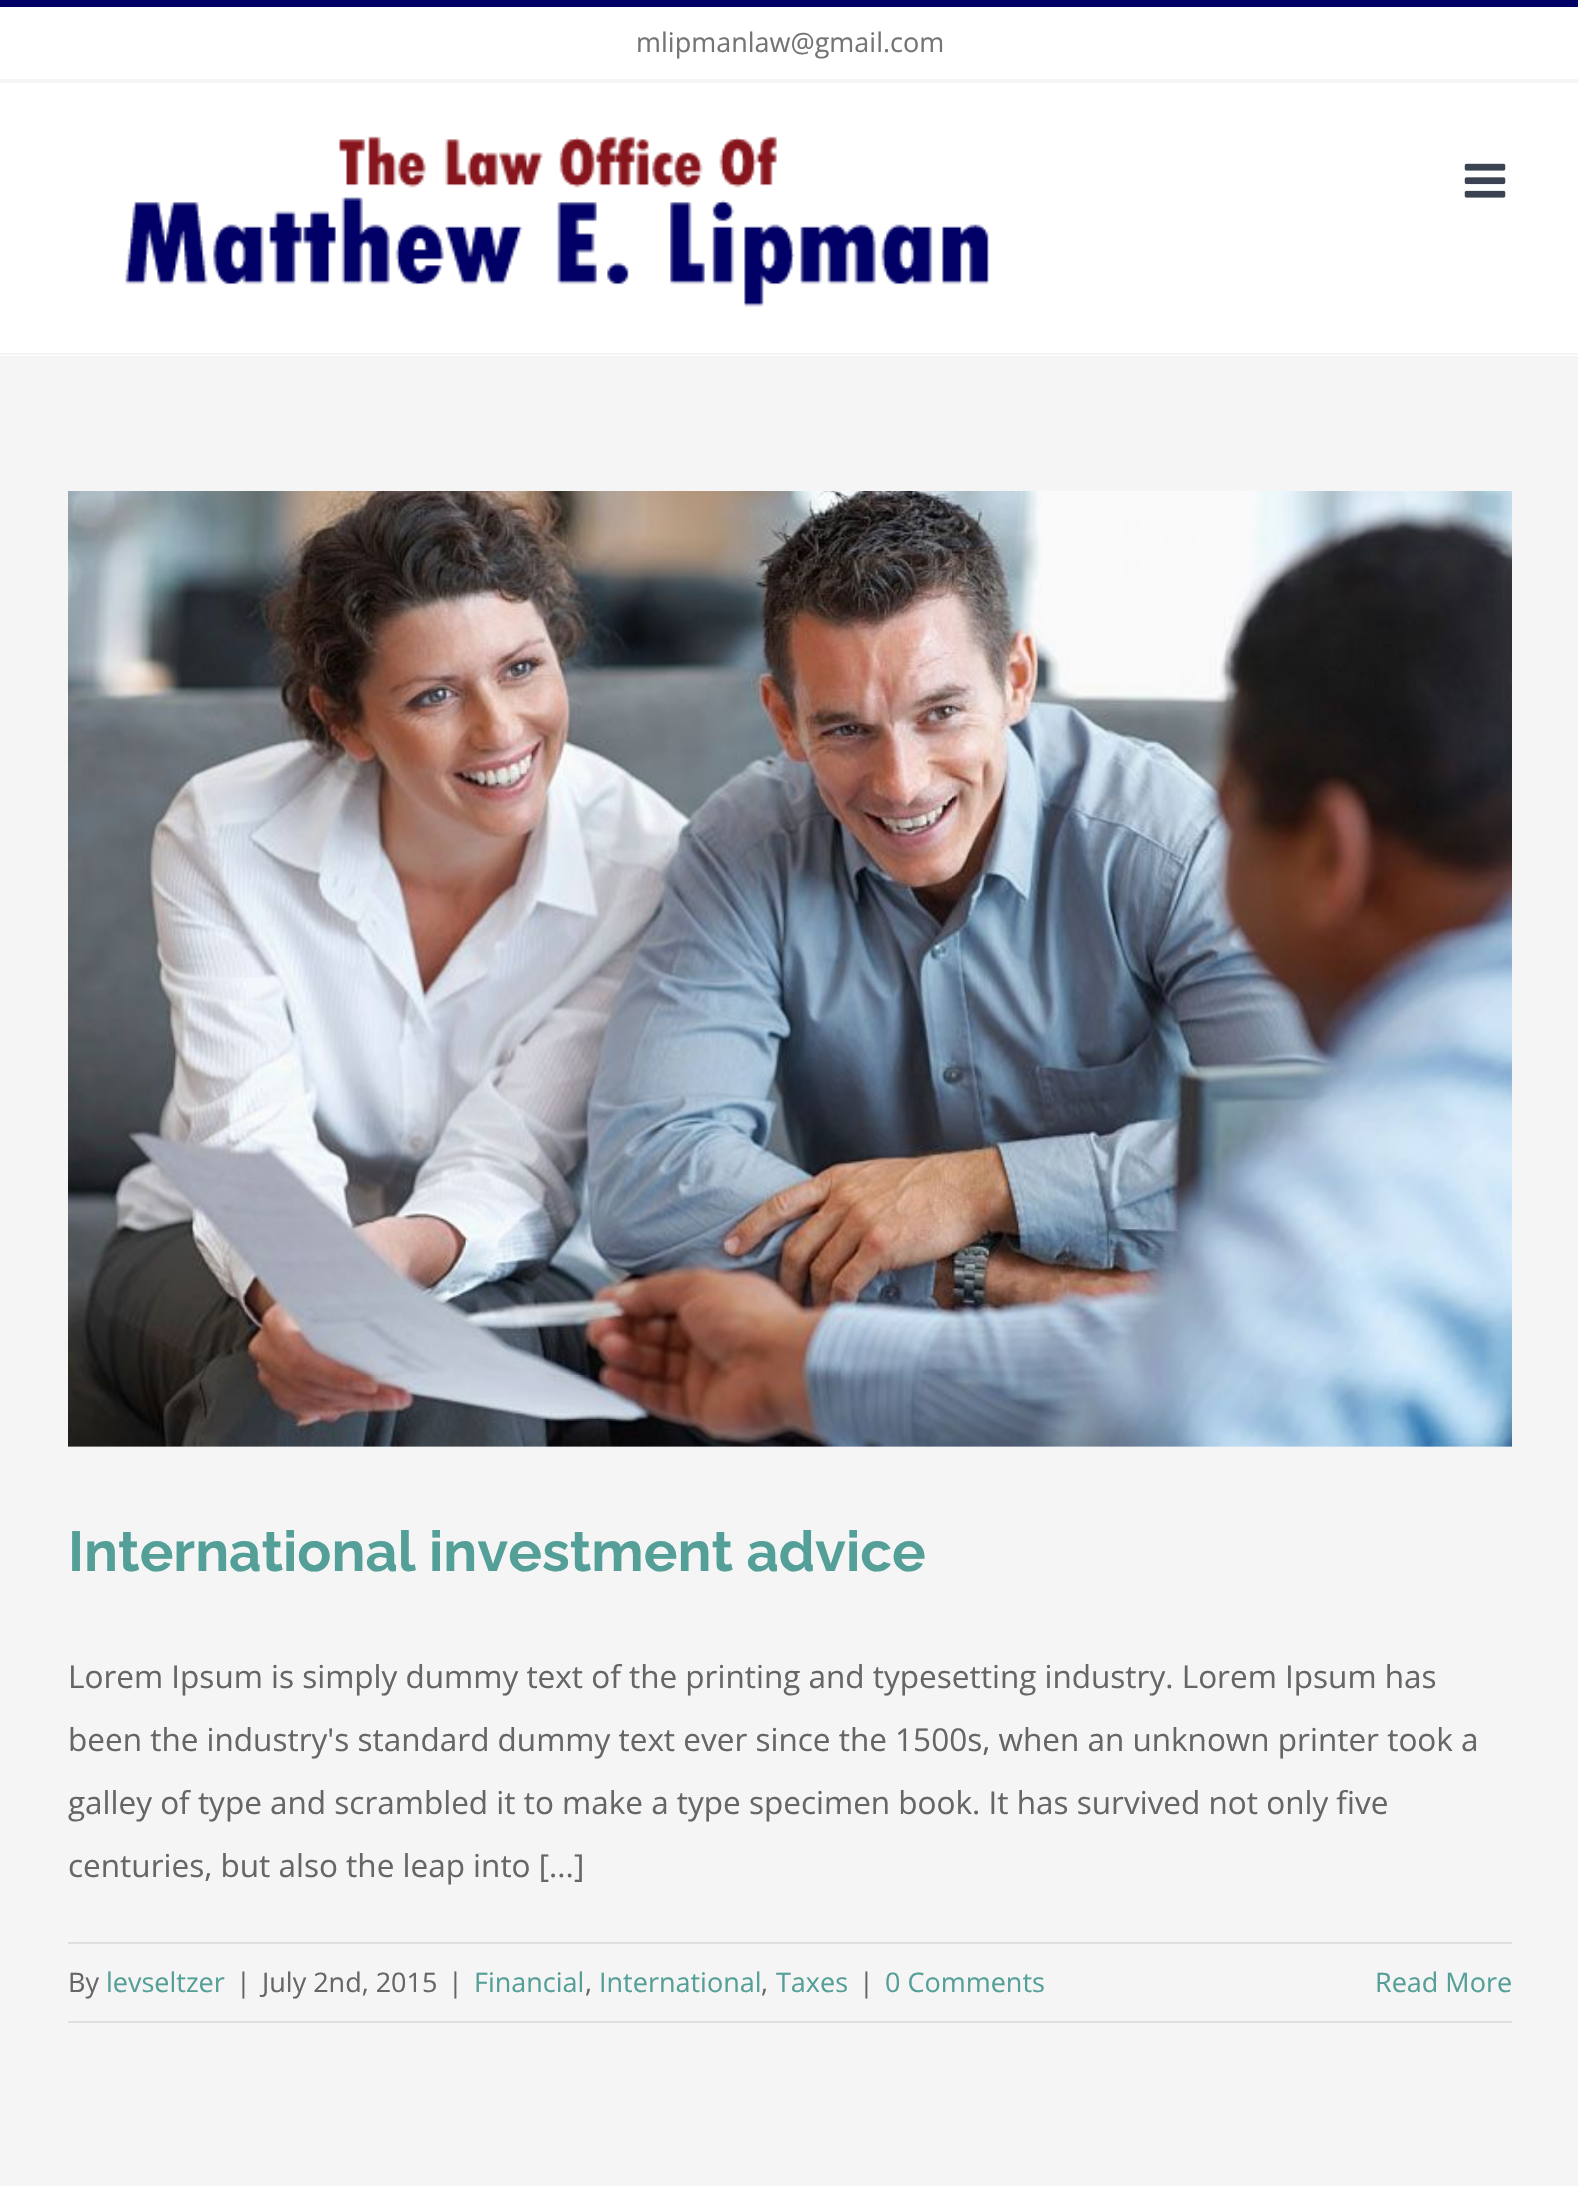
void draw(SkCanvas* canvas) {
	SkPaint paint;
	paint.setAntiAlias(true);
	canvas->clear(0xfff5f5f5);
	paint.setColor(0xffffffff);
	canvas->drawRect(SkRect::MakeXYWH(0, 7, 1578, 72), paint);
	paint.setColor(0xff000066);
	canvas->drawRect(SkRect::MakeXYWH(0, 0, 1578, 7), paint);
	SkFont f1(fontMgr->matchFamilyStyle("Open Sans", SkFontStyle::Normal()), 27);
	f1.setSubpixel(true);
	paint.setColor(0xff747474);
	canvas->drawString("mlipmanlaw@gmail.com", 636, 52, f1, paint);
	paint.setColor(0xffffffff);
	canvas->drawRect(SkRect::MakeXYWH(0, 83, 1578, 273), paint);
	paint.setColor(0xfff5f5f5);
	canvas->drawRect(SkRect::MakeXYWH(0, 353, 1578, 2), paint);
	canvas->drawImageRect(SkImages::DeferredFromEncodedData(SkData::MakeFromFileName("img1.png")), SkRect::MakeXYWH(125, 136, 864, 171), SkSamplingOptions());
	canvas->drawImageRect(SkImages::DeferredFromEncodedData(SkData::MakeFromFileName("img2.png")), SkRect::MakeXYWH(1464, 163, 42, 35), SkSamplingOptions());
	canvas->drawImageRect(SkImages::DeferredFromEncodedData(SkData::MakeFromFileName("img3.png")), SkRect::MakeXYWH(68, 491, 1444, 956), SkSamplingOptions());
	SkFont f2(fontMgr->matchFamilyStyle("Raleway", SkFontStyle(100, SkFontStyle::kNormal_Width, SkFontStyle::kUpright_Slant)), 56.25);
	f2.setSubpixel(true);
	paint.setColor(0xff549f97);
	canvas->drawString("International investment advice", 68, 1571, f2, paint);
	SkFont f3(fontMgr->matchFamilyStyle("Open Sans", SkFontStyle::Normal()), 31.5);
	f3.setSubpixel(true);
	paint.setColor(0xff666666);
	canvas->drawString("Lorem Ipsum is simply dummy text of the printing and typesetting industry. Lorem Ipsum has", 68, 1688, f3, paint);
	canvas->drawString("been the industry's standard dummy text ever since the 1500s, when an unknown printer took a", 68, 1751, f3, paint);
	canvas->drawString("galley of type and scrambled it to make a type specimen book. It has survived not only five", 68, 1814, f3, paint);
	canvas->drawString("centuries, but also the leap into [...]", 68, 1877, f3, paint);
	paint.setColor(0xffe0dede);
	canvas->drawRect(SkRect::MakeXYWH(68, 1942, 1444, 2), paint);
	canvas->drawRect(SkRect::MakeXYWH(68, 2021, 1444, 2), paint);
	paint.setColor(0xff666666);
	canvas->drawString("By", 68, 1992, f1, paint);
	paint.setColor(0xff549f97);
	canvas->drawString("levseltzer", 106, 1992, f1, paint);
	paint.setColor(0xff666666);
	canvas->drawString("|", 236, 1992, f1, paint);
	canvas->drawString("July 2nd, 2015", 262, 1992, f1, paint);
	canvas->drawString("|", 448, 1992, f1, paint);
	paint.setColor(0xff549f97);
	canvas->drawString("Financial", 474, 1992, f1, paint);
	paint.setColor(0xff666666);
	canvas->drawString(",", 585, 1992, f1, paint);
	paint.setColor(0xff549f97);
	canvas->drawString("International", 599, 1992, f1, paint);
	paint.setColor(0xff666666);
	canvas->drawString(",", 761, 1992, f1, paint);
	paint.setColor(0xff549f97);
	canvas->drawString("Taxes", 776, 1992, f1, paint);
	paint.setColor(0xff666666);
	canvas->drawString("|", 859, 1992, f1, paint);
	paint.setColor(0xff549f97);
	canvas->drawString("0 Comments", 885, 1992, f1, paint);
	canvas->drawString("Read More", 1375, 1992, f1, paint);
}
